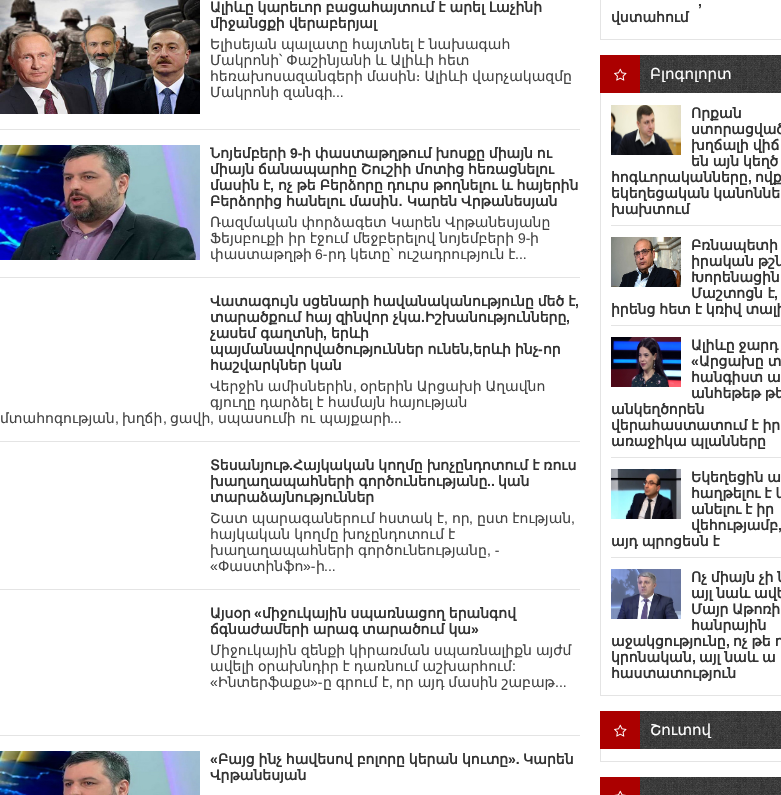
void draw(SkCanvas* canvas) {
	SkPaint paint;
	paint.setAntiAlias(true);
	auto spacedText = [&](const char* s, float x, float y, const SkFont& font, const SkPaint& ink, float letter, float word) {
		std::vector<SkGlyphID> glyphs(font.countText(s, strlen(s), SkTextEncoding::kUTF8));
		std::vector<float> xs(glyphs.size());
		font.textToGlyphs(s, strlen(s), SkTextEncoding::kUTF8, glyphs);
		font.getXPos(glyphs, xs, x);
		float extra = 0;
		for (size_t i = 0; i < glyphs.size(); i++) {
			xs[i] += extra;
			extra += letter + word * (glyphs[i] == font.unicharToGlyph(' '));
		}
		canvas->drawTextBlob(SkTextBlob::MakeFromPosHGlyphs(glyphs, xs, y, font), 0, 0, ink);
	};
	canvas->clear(0xffffffff);
	paint.setColor(0xffe4e4e4);
	canvas->drawRect(SkRect::MakeXYWH(0, 129, 580, 1), paint);
	canvas->drawImageRect(SkImages::DeferredFromEncodedData(SkData::MakeFromFileName("img1.png")), SkRect::MakeXYWH(0, 0, 200, 114), SkSamplingOptions());
	SkFont f1(fontMgr->matchFamilyStyle("DejaVu Sans", SkFontStyle::Bold()), 14);
	f1.setSubpixel(true);
	paint.setColor(0xff333333);
	spacedText("Ալիևը կարեւոր բացահայտում է արել Լաչինի", 210, 12, f1, paint, 0, -0.5);
	spacedText("միջանցքի վերաբերյալ", 210, 28, f1, paint, 0, -0.5);
	SkFont f2(fontMgr->matchFamilyStyle("DejaVu Sans", SkFontStyle::Normal()), 14);
	f2.setSubpixel(true);
	paint.setColor(0xff444444);
	spacedText("Ելիսեյան պալատը հայտնել է նախագահ", 210, 49, f2, paint, 0, -0.5);
	spacedText("Մակրոնի՝ Փաշինյանի և Ալիևի հետ", 210, 65, f2, paint, 0, -0.5);
	spacedText("հեռախոսազանգերի մասին։ Ալիևի վարչակազմը", 210, 81, f2, paint, 0, -0.5);
	spacedText("Մակրոնի զանգի", 210, 97, f2, paint, 0, -0.5);
	SkFont f3(fontMgr->matchFamilyStyle("Liberation Sans", SkFontStyle::Normal()), 14);
	f3.setSubpixel(true);
	canvas->drawString("...", 332, 97, f3, paint);
	paint.setColor(0xffe4e4e4);
	canvas->drawRect(SkRect::MakeXYWH(0, 277, 580, 1), paint);
	canvas->drawImageRect(SkImages::DeferredFromEncodedData(SkData::MakeFromFileName("img2.png")), SkRect::MakeXYWH(0, 145, 200, 115), SkSamplingOptions());
	paint.setColor(0xff333333);
	canvas->drawString("Նոյեմբերի", 210, 158, f1, paint);
	SkFont f4(fontMgr->matchFamilyStyle("Liberation Sans", SkFontStyle::Bold()), 14);
	f4.setSubpixel(true);
	canvas->drawString("9-", 290, 158, f4, paint);
	spacedText("ի փաստաթղթում խոսքը միայն ու", 302, 158, f1, paint, 0, -0.5);
	spacedText("միայն ճանապարհը Շուշիի մոտից հեռացնելու", 210, 174, f1, paint, 0, -0.5);
	spacedText("մասին է", 210, 190, f1, paint, 0, -0.5);
	canvas->drawString(",", 270, 190, f4, paint);
	spacedText("ոչ թե Բերձորը դուրս թողնելու և հայերին", 278, 190, f1, paint, 0, -0.5);
	spacedText("Բերձորից հանելու մասին․ Կարեն Վրթանեսյան", 210, 206, f1, paint, 0, -0.5);
	paint.setColor(0xff444444);
	spacedText("Ռազմական փորձագետ Կարեն Վրթանեսյանը", 210, 227, f2, paint, 0, -0.5);
	spacedText("Ֆեյսբուքի իր էջում մեջբերելով նոյեմբերի", 210, 243, f2, paint, 0, -0.5);
	canvas->drawString("9-", 518, 243, f3, paint);
	canvas->drawString("ի", 530, 243, f2, paint);
	canvas->drawString("փաստաթղթի", 210, 259, f2, paint);
	canvas->drawString("6-", 315, 259, f3, paint);
	spacedText("րդ կետը՝ ուշադրություն է", 328, 259, f2, paint, 0, -0.5);
	canvas->drawString("...", 515, 259, f3, paint);
	paint.setColor(0xffe4e4e4);
	canvas->drawRect(SkRect::MakeXYWH(0, 441, 580, 1), paint);
	paint.setColor(0xff333333);
	spacedText("Վատագույն սցենարի հավանականությունը մեծ է", 210, 306, f1, paint, 0, -0.5);
	canvas->drawString(",", 575, 306, f4, paint);
	spacedText("տարածքում հայ զինվոր չկա", 210, 322, f1, paint, 0, -0.5);
	canvas->drawString(".", 421, 322, f4, paint);
	canvas->drawString("Իշխանությունները", 425, 322, f1, paint);
	canvas->drawString(",", 566, 322, f4, paint);
	canvas->drawString("չասեմ գաղտնի", 210, 338, f1, paint);
	canvas->drawString(",", 323, 338, f4, paint);
	canvas->drawString("երևի", 331, 338, f1, paint);
	spacedText("պայմանավորվածություններ ունեն", 210, 354, f1, paint, 0, -0.5);
	spacedText("երևի ինչ", 473, 354, f1, paint, 0, -0.5);
	canvas->drawString("-", 538, 354, f4, paint);
	canvas->drawString("որ", 543, 354, f1, paint);
	canvas->drawString(",", 469, 354, f4, paint);
	spacedText("հաշվարկներ կան", 210, 370, f1, paint, 0, -0.5);
	paint.setColor(0xff444444);
	spacedText("Վերջին ամիսներին", 210, 391, f2, paint, 0, -0.5);
	canvas->drawString(",", 353, 391, f3, paint);
	spacedText("օրերին Արցախի Աղավնո", 360, 391, f2, paint, 0, -0.5);
	spacedText("գյուղը դարձել է համայն հայության", 210, 407, f2, paint, 0, -0.5);
	canvas->drawString("մտահոգության", 0, 423, f2, paint);
	canvas->drawString(",", 115, 423, f3, paint);
	canvas->drawString("խղճի", 122, 423, f2, paint);
	canvas->drawString(",", 163, 423, f3, paint);
	canvas->drawString("ցավի", 170, 423, f2, paint);
	canvas->drawString(",", 210, 423, f3, paint);
	canvas->drawString("սպասումի ու պայքարի", 218, 423, f2, paint);
	canvas->drawString("...", 390, 423, f3, paint);
	paint.setColor(0xffe4e4e4);
	canvas->drawRect(SkRect::MakeXYWH(0, 589, 580, 1), paint);
	paint.setColor(0xff333333);
	canvas->drawString("Տեսանյութ", 210, 470, f1, paint);
	canvas->drawString(".", 289, 470, f4, paint);
	spacedText("Հայկական կողմը խոչընդոտում է ռուս", 293, 470, f1, paint, 0, -0.5);
	canvas->drawString("խաղաղապահների գործունեությանը", 210, 486, f1, paint);
	canvas->drawString("..", 487, 486, f4, paint);
	canvas->drawString("կան", 498, 486, f1, paint);
	canvas->drawString("տարաձայնություններ", 210, 502, f1, paint);
	paint.setColor(0xff444444);
	spacedText("Շատ պարագաներում հստակ է", 210, 523, f2, paint, 0, -0.5);
	canvas->drawString(",", 444, 523, f3, paint);
	canvas->drawString("որ", 452, 523, f2, paint);
	canvas->drawString(",", 469, 523, f3, paint);
	spacedText("ըստ էության", 477, 523, f2, paint, 0, -0.5);
	canvas->drawString(",", 571, 523, f3, paint);
	spacedText("հայկական կողմը խոչընդոտում է", 210, 539, f2, paint, 0, -0.5);
	canvas->drawString("խաղաղապահների", 210, 555, f2, paint);
	canvas->drawString("գործունեությանը", 358, 555, f2, paint);
	canvas->drawString(", -", 487, 555, f3, paint);
	canvas->drawString("«", 210, 571, f3, paint);
	canvas->drawString("Փաստինֆո", 218, 571, f2, paint);
	canvas->drawString("»-", 303, 571, f3, paint);
	canvas->drawString("ի", 316, 571, f2, paint);
	canvas->drawString("...", 324, 571, f3, paint);
	paint.setColor(0xffe4e4e4);
	canvas->drawRect(SkRect::MakeXYWH(0, 735, 580, 1), paint);
	paint.setColor(0xff333333);
	canvas->drawString("Այսօր", 210, 618, f1, paint);
	canvas->drawString("«", 254, 618, f4, paint);
	spacedText("միջուկային սպառնացող երանգով", 262, 618, f1, paint, 0, -0.5);
	spacedText("ճգնաժամերի արագ տարածում կա", 210, 634, f1, paint, 0, -0.5);
	canvas->drawString("»", 471, 634, f4, paint);
	paint.setColor(0xff444444);
	spacedText("Միջուկային զենքի կիրառման սպառնալիքն այժմ", 210, 655, f2, paint, 0, -0.5);
	spacedText("ավելի օրախնդիր է դառնում աշխարհում", 210, 671, f2, paint, 0, -0.5);
	canvas->drawString(":", 512, 671, f3, paint);
	canvas->drawString("«", 210, 687, f3, paint);
	canvas->drawString("Ինտերֆաքս", 218, 687, f2, paint);
	canvas->drawString("»-", 310, 687, f3, paint);
	spacedText("ը գրում է", 323, 687, f2, paint, 0, -0.5);
	canvas->drawString(",", 389, 687, f3, paint);
	spacedText("որ այդ մասին շաբաթ", 396, 687, f2, paint, 0, -0.5);
	canvas->drawString("...", 555, 687, f3, paint);
	canvas->drawImageRect(SkImages::DeferredFromEncodedData(SkData::MakeFromFileName("img3.png")), SkRect::MakeXYWH(0, 751, 200, 44), SkSamplingOptions());
	paint.setColor(0xff333333);
	canvas->drawString("«", 210, 764, f4, paint);
	spacedText("Բայց ինչ հավեսով բոլորը կերան կուտը", 218, 764, f1, paint, 0, -0.5);
	canvas->drawString("».", 508, 764, f4, paint);
	canvas->drawString("Կարեն", 523, 764, f1, paint);
	canvas->drawString("Վրթանեսյան", 210, 780, f1, paint);
	paint.setStroke(true);
	paint.setStrokeWidth(1);
	paint.setColor(0xffe4e4e4);
	canvas->drawRect(SkRect::MakeXYWH(600.5, -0.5, 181, 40), paint);
	paint.setStroke(false);
	paint.setColor(0xff333333);
	canvas->drawString(",", 698, 6, f4, paint);
	canvas->drawString("վստահում", 611, 22, f1, paint);
	paint.setStroke(true);
	paint.setColor(0xffe4e4e4);
	canvas->drawRect(SkRect::MakeXYWH(600.5, 92.5, 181, 603), paint);
	canvas->drawImageRect(SkImages::DeferredFromEncodedData(SkData::MakeFromFileName("img4.png")), SkRect::MakeXYWH(640, 55, 141, 38), SkSamplingOptions());
	paint.setStroke(false);
	paint.setColor(0xffab0000);
	canvas->drawRect(SkRect::MakeXYWH(600, 55, 40, 38), paint);
	canvas->drawImageRect(SkImages::DeferredFromEncodedData(SkData::MakeFromFileName("img5.png")), SkRect::MakeXYWH(614, 68, 13, 13), SkSamplingOptions());
	SkFont f5(fontMgr->matchFamilyStyle("DejaVu Sans", SkFontStyle::Normal()), 15);
	f5.setSubpixel(true);
	paint.setColor(0xffffffff);
	canvas->drawString("Բլոգոլորտ", 650, 79, f5, paint);
	paint.setColor(0xffe4e4e4);
	canvas->drawRect(SkRect::MakeXYWH(611, 225, 170, 1), paint);
	canvas->drawImageRect(SkImages::DeferredFromEncodedData(SkData::MakeFromFileName("img6.png")), SkRect::MakeXYWH(611, 105, 70, 50), SkSamplingOptions());
	paint.setColor(0xff333333);
	canvas->drawString("Որքան", 691, 118, f1, paint);
	spacedText("ստորացված", 691, 134, f1, paint, 0, -0.5);
	spacedText("խղճալի վիճ", 691, 150, f1, paint, 0, -0.5);
	spacedText("են այն կեղծ", 691, 166, f1, paint, 0, -0.5);
	canvas->drawString("հոգևորականները", 611, 182, f1, paint);
	canvas->drawString(",", 748, 182, f4, paint);
	canvas->drawString("ովք", 755, 182, f1, paint);
	spacedText("եկեղեցական կանոննե", 611, 198, f1, paint, 0, -0.5);
	canvas->drawString("խախտում", 611, 214, f1, paint);
	paint.setColor(0xffe4e4e4);
	canvas->drawRect(SkRect::MakeXYWH(611, 325, 170, 1), paint);
	canvas->drawImageRect(SkImages::DeferredFromEncodedData(SkData::MakeFromFileName("img7.png")), SkRect::MakeXYWH(611, 237, 70, 50), SkSamplingOptions());
	paint.setColor(0xff333333);
	canvas->drawString("Բռնապետի", 691, 250, f1, paint);
	spacedText("իրական թշն", 691, 266, f1, paint, 0, -0.5);
	spacedText("Խորենացին", 691, 282, f1, paint, 0, -0.5);
	canvas->drawString("Մաշտոցն է", 691, 298, f1, paint);
	canvas->drawString(",", 774, 298, f4, paint);
	spacedText("իրենց հետ է կռիվ տալի", 611, 314, f1, paint, 0, -0.5);
	paint.setColor(0xffe4e4e4);
	canvas->drawRect(SkRect::MakeXYWH(611, 457, 170, 1), paint);
	canvas->drawImageRect(SkImages::DeferredFromEncodedData(SkData::MakeFromFileName("img8.png")), SkRect::MakeXYWH(611, 337, 70, 50), SkSamplingOptions());
	paint.setColor(0xff333333);
	spacedText("Ալիևը ջարդ", 691, 350, f1, paint, 0, -0.5);
	canvas->drawString("«", 691, 366, f4, paint);
	spacedText("Արցախը տ", 699, 366, f1, paint, 0, -0.5);
	spacedText("հանգիստ ա", 691, 382, f1, paint, 0, -0.5);
	spacedText("անհեթեթ թե", 691, 398, f1, paint, 0, -0.5);
	canvas->drawString("անկեղծորեն", 611, 414, f1, paint);
	spacedText("վերահաստատում է իր", 611, 430, f1, paint, 0, -0.5);
	spacedText("առաջիկա պլանները", 611, 446, f1, paint, 0, -0.5);
	paint.setColor(0xffe4e4e4);
	canvas->drawRect(SkRect::MakeXYWH(611, 557, 170, 1), paint);
	canvas->drawImageRect(SkImages::DeferredFromEncodedData(SkData::MakeFromFileName("img9.png")), SkRect::MakeXYWH(611, 469, 70, 50), SkSamplingOptions());
	paint.setColor(0xff333333);
	spacedText("Եկեղեցին ա", 691, 482, f1, paint, 0, -0.5);
	spacedText("հաղթելու է և", 691, 498, f1, paint, 0, -0.5);
	spacedText("անելու է իր", 691, 514, f1, paint, 0, -0.5);
	canvas->drawString("վեհությամբ", 691, 530, f1, paint);
	canvas->drawString(",", 778, 530, f4, paint);
	spacedText("այդ պրոցեսն է", 611, 546, f1, paint, 0, -0.5);
	canvas->drawImageRect(SkImages::DeferredFromEncodedData(SkData::MakeFromFileName("img10.png")), SkRect::MakeXYWH(611, 569, 70, 50), SkSamplingOptions());
	spacedText("Ոչ միայն չի ն", 691, 582, f1, paint, 0, -0.5);
	spacedText("այլ նաև ավե", 691, 598, f1, paint, 0, -0.5);
	spacedText("Մայր Աթոռի", 691, 614, f1, paint, 0, -0.5);
	canvas->drawString("հանրային", 691, 630, f1, paint);
	canvas->drawString("աջակցությունը", 611, 646, f1, paint);
	canvas->drawString(",", 726, 646, f4, paint);
	spacedText("ոչ թե ո", 733, 646, f1, paint, 0, -0.5);
	canvas->drawString("կրոնական", 611, 662, f1, paint);
	canvas->drawString(",", 692, 662, f4, paint);
	spacedText("այլ նաև ա", 699, 662, f1, paint, 0, -0.5);
	canvas->drawString("հաստատություն", 611, 678, f1, paint);
	paint.setStroke(true);
	paint.setColor(0xffe4e4e4);
	canvas->drawRect(SkRect::MakeXYWH(600.5, 748.5, 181, 13), paint);
	canvas->drawImageRect(SkImages::DeferredFromEncodedData(SkData::MakeFromFileName("img4.png")), SkRect::MakeXYWH(640, 711, 141, 38), SkSamplingOptions());
	paint.setStroke(false);
	paint.setColor(0xffab0000);
	canvas->drawRect(SkRect::MakeXYWH(600, 711, 40, 38), paint);
	canvas->drawImageRect(SkImages::DeferredFromEncodedData(SkData::MakeFromFileName("img5.png")), SkRect::MakeXYWH(614, 724, 13, 13), SkSamplingOptions());
	paint.setColor(0xffffffff);
	canvas->drawString("Շուտով", 650, 735, f5, paint);
	canvas->drawImageRect(SkImages::DeferredFromEncodedData(SkData::MakeFromFileName("img11.png")), SkRect::MakeXYWH(640, 777, 141, 18), SkSamplingOptions());
	paint.setColor(0xffab0000);
	canvas->drawRect(SkRect::MakeXYWH(600, 777, 40, 18), paint);
	canvas->drawImageRect(SkImages::DeferredFromEncodedData(SkData::MakeFromFileName("img12.png")), SkRect::MakeXYWH(614, 790, 12, 5), SkSamplingOptions());
}
